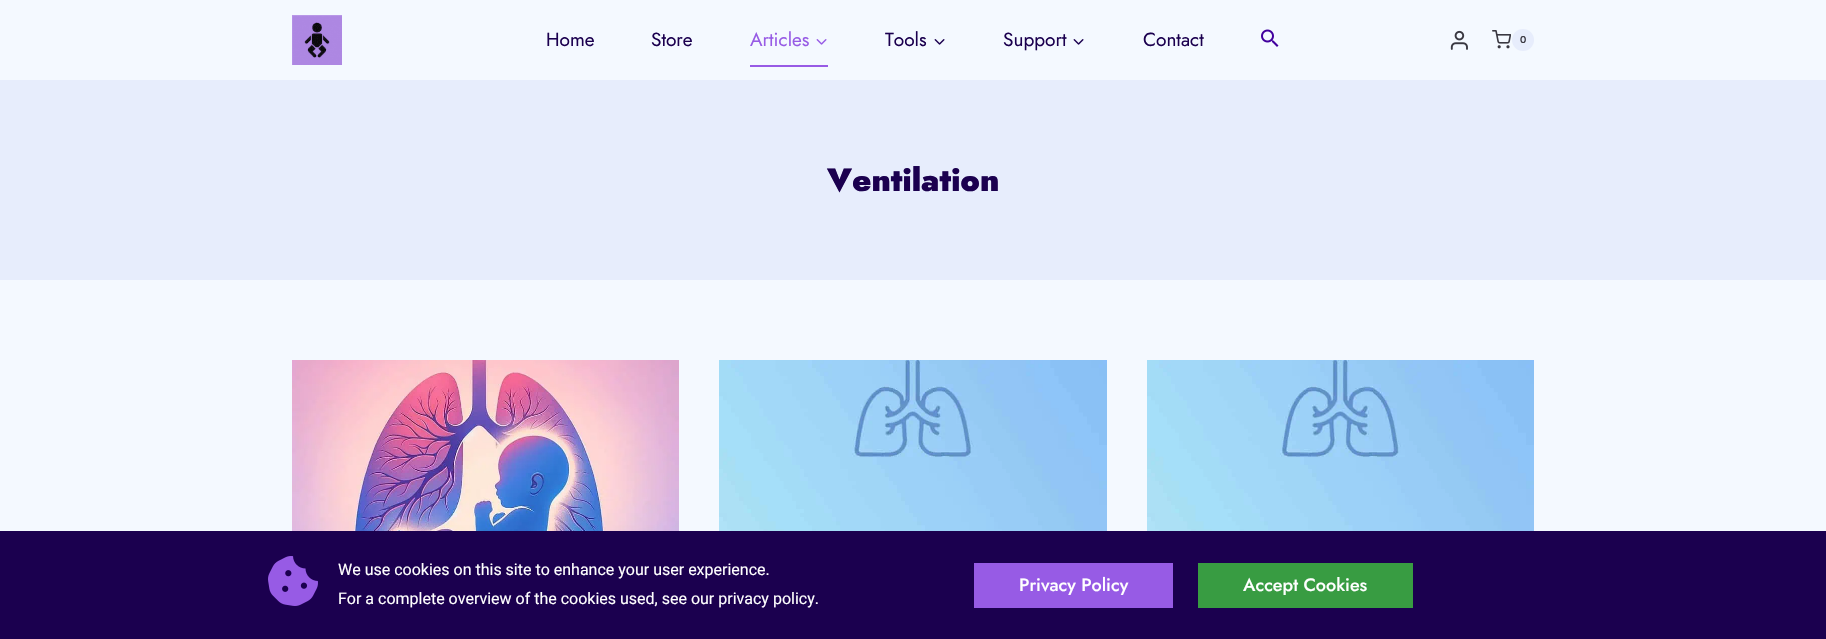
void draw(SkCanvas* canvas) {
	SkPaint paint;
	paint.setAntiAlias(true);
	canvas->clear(0xfff4f9ff);
	canvas->drawImageRect(SkImages::DeferredFromEncodedData(SkData::MakeFromFileName("img1.png")), SkRect::MakeXYWH(292, 15, 50, 50), SkSamplingOptions());
	SkFont f1(fontMgr->matchFamilyStyle("Jost", SkFontStyle::Normal()), 19);
	f1.setSubpixel(true);
	paint.setColor(0xff1b004f);
	canvas->drawString("Home", 546, 46, f1, paint);
	canvas->drawString("Store", 651, 46, f1, paint);
	paint.setColor(0xff975be5);
	canvas->drawString("Articles", 750, 46, f1, paint);
	canvas->drawImageRect(SkImages::DeferredFromEncodedData(SkData::MakeFromFileName("img2.png")), SkRect::MakeXYWH(816, 39, 11, 6), SkSamplingOptions());
	canvas->drawRect(SkRect::MakeXYWH(750, 65, 78, 2), paint);
	paint.setColor(0xff1b004f);
	canvas->drawString("Tools", 885, 46, f1, paint);
	canvas->drawImageRect(SkImages::DeferredFromEncodedData(SkData::MakeFromFileName("img3.png")), SkRect::MakeXYWH(934, 39, 11, 6), SkSamplingOptions());
	canvas->drawString("Support", 1003, 46, f1, paint);
	canvas->drawImageRect(SkImages::DeferredFromEncodedData(SkData::MakeFromFileName("img3.png")), SkRect::MakeXYWH(1073, 39, 11, 6), SkSamplingOptions());
	canvas->drawString("Contact", 1143, 46, f1, paint);
	canvas->drawImageRect(SkImages::DeferredFromEncodedData(SkData::MakeFromFileName("img4.png")), SkRect::MakeXYWH(1261, 29, 18, 18), SkSamplingOptions());
	canvas->drawImageRect(SkImages::DeferredFromEncodedData(SkData::MakeFromFileName("img5.png")), SkRect::MakeXYWH(1450, 30, 18, 20), SkSamplingOptions());
	canvas->drawImageRect(SkImages::DeferredFromEncodedData(SkData::MakeFromFileName("img6.png")), SkRect::MakeXYWH(1492, 30, 19, 19), SkSamplingOptions());
	paint.setColor(0xffe7edfc);
	canvas->drawCircle(1523, 40, 11, paint);
	SkFont f2(fontMgr->matchFamilyStyle("Jost", SkFontStyle(500, SkFontStyle::kNormal_Width, SkFontStyle::kUpright_Slant)), 10);
	f2.setSubpixel(true);
	paint.setColor(0xff393841);
	canvas->drawString("0", 1520, 43, f2, paint);
	paint.setColor(0xffe7edfc);
	canvas->drawRect(SkRect::MakeXYWH(0, 80, 1826, 200), paint);
	SkFont f3(fontMgr->matchFamilyStyle("Jost", SkFontStyle(900, SkFontStyle::kNormal_Width, SkFontStyle::kUpright_Slant)), 32);
	f3.setSubpixel(true);
	paint.setColor(0xff1b004f);
	canvas->drawString("Ventilation", 827, 191, f3, paint);
	canvas->drawImageRect(SkImages::DeferredFromEncodedData(SkData::MakeFromFileName("img7.png")), SkRect::MakeXYWH(292, 360, 387, 171), SkSamplingOptions());
	canvas->drawImageRect(SkImages::DeferredFromEncodedData(SkData::MakeFromFileName("img8.png")), SkRect::MakeXYWH(719, 360, 388, 171), SkSamplingOptions());
	canvas->drawImageRect(SkImages::DeferredFromEncodedData(SkData::MakeFromFileName("img9.png")), SkRect::MakeXYWH(1147, 360, 387, 171), SkSamplingOptions());
	canvas->drawRect(SkRect::MakeXYWH(0, 531, 1826, 108), paint);
	canvas->drawImageRect(SkImages::DeferredFromEncodedData(SkData::MakeFromFileName("img10.png")), SkRect::MakeXYWH(268, 556, 50, 50), SkSamplingOptions());
	SkFont f4(fontMgr->matchFamilyStyle("Roboto", SkFontStyle::Normal()), 16);
	f4.setSubpixel(true);
	paint.setColor(0xffffffff);
	canvas->drawString("We use cookies on this site to enhance your user experience.", 338, 575, f4, paint);
	canvas->drawString("For a complete overview of the cookies used, see our privacy policy.", 338, 604, f4, paint);
	paint.setColor(0xff975be5);
	canvas->drawRect(SkRect::MakeXYWH(974, 563, 199, 45), paint);
	SkFont f5(fontMgr->matchFamilyStyle("Jost", SkFontStyle(500, SkFontStyle::kNormal_Width, SkFontStyle::kUpright_Slant)), 18);
	f5.setSubpixel(true);
	paint.setColor(0xffffffff);
	canvas->drawString("Privacy Policy", 1019, 591, f5, paint);
	paint.setColor(0xff389c42);
	canvas->drawRect(SkRect::MakeXYWH(1198, 563, 215, 45), paint);
	paint.setColor(0xffffffff);
	canvas->drawString("Accept Cookies", 1243, 591, f5, paint);
}
